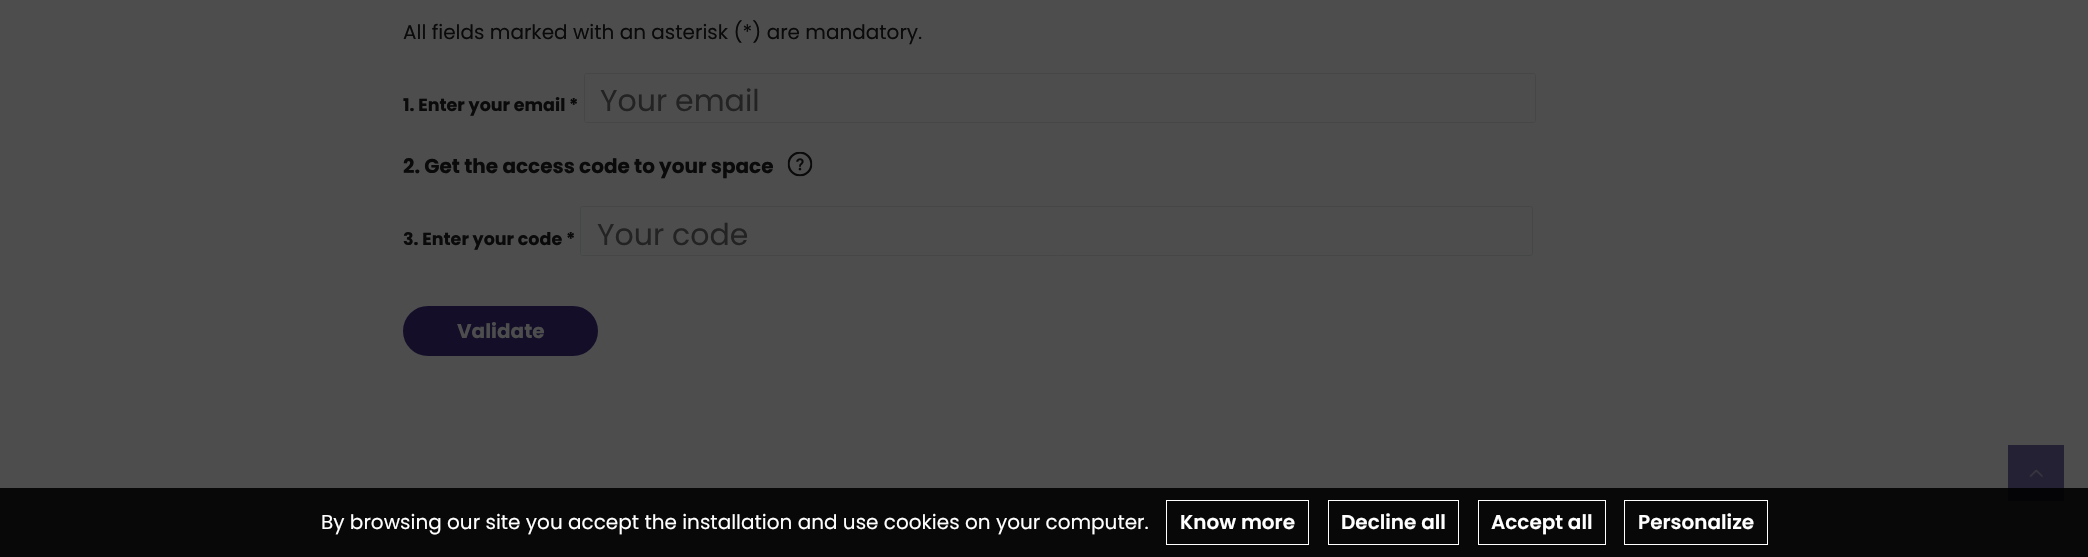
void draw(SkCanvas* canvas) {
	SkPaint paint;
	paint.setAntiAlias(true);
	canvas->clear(0xff4d4d4d);
	paint.setColor(0xff080808);
	canvas->drawRect(SkRect::MakeXYWH(0, 488, 2088, 69), paint);
	SkFont f1(fontMgr->matchFamilyStyle("Poppins", SkFontStyle::Normal()), 20);
	f1.setSubpixel(true);
	paint.setColor(0xff0a0a0a);
	canvas->drawString("All fields marked with an asterisk (*) are mandatory.", 403, 39, f1, paint);
	SkFont f2(fontMgr->matchFamilyStyle("Poppins", SkFontStyle::Bold()), 17.5);
	f2.setSubpixel(true);
	canvas->drawString("1. Enter your email *", 403, 111, f2, paint);
	paint.setStroke(true);
	paint.setStrokeWidth(1);
	paint.setColor(0xff454747);
	canvas->drawRoundRect(SkRect::MakeXYWH(584.5, 73.5, 951, 49), 2, 2, paint);
	SkFont f3(fontMgr->matchFamilyStyle("Poppins", SkFontStyle::Normal()), 30);
	f3.setSubpixel(true);
	paint.setStroke(false);
	paint.setColor(0xff232323);
	canvas->drawString("Your email", 600, 111, f3, paint);
	SkFont f4(fontMgr->matchFamilyStyle("Poppins", SkFontStyle::Bold()), 20);
	f4.setSubpixel(true);
	paint.setColor(0xff0a0a0a);
	canvas->drawString("2. Get the access code to your space", 403, 173, f4, paint);
	canvas->drawImageRect(SkImages::DeferredFromEncodedData(SkData::MakeFromFileName("img1.png")), SkRect::MakeXYWH(787, 151, 26, 26), SkSamplingOptions());
	canvas->drawString("3. Enter your code *", 403, 245, f2, paint);
	paint.setStroke(true);
	paint.setColor(0xff454747);
	canvas->drawRoundRect(SkRect::MakeXYWH(580.5, 206.5, 952, 49), 2, 2, paint);
	paint.setStroke(false);
	paint.setColor(0xff232323);
	canvas->drawString("Your code", 597, 245, f3, paint);
	paint.setColor(0xff140e29);
	canvas->drawRoundRect(SkRect::MakeXYWH(404.5, 307.5, 192, 47), 23.5, 23.5, paint);
	paint.setStroke(true);
	paint.setStrokeWidth(3);
	canvas->drawRoundRect(SkRect::MakeXYWH(404.5, 307.5, 192, 47), 23.5, 23.5, paint);
	paint.setStroke(false);
	paint.setColor(0xff4d4d4d);
	canvas->drawString("Validate", 457, 338, f4, paint);
	paint.setColor(0xff252134);
	canvas->drawRect(SkRect::MakeXYWH(2008, 445, 56, 43), paint);
	paint.setColor(0xff040305);
	canvas->drawRect(SkRect::MakeXYWH(2008, 488, 56, 13), paint);
	canvas->drawImageRect(SkImages::DeferredFromEncodedData(SkData::MakeFromFileName("img2.png")), SkRect::MakeXYWH(2029, 469, 14, 9), SkSamplingOptions());
	paint.setColor(0xffffffff);
	canvas->drawString("By browsing our site you accept the installation and use cookies on your computer.", 321, 529, f1, paint);
	paint.setStroke(true);
	paint.setStrokeWidth(1);
	canvas->drawRect(SkRect::MakeXYWH(1166.5, 500.5, 142, 44), paint);
	SkFont f5(fontMgr->matchFamilyStyle("Poppins", SkFontStyle(600, SkFontStyle::kNormal_Width, SkFontStyle::kUpright_Slant)), 20);
	f5.setSubpixel(true);
	paint.setStroke(false);
	canvas->drawString("Know more", 1180, 529, f5, paint);
	paint.setStroke(true);
	canvas->drawRect(SkRect::MakeXYWH(1328.5, 500.5, 130, 44), paint);
	paint.setStroke(false);
	canvas->drawString("Decline all", 1341, 529, f5, paint);
	paint.setStroke(true);
	canvas->drawRect(SkRect::MakeXYWH(1478.5, 500.5, 127, 44), paint);
	paint.setStroke(false);
	canvas->drawString("Accept all", 1491, 529, f5, paint);
	paint.setStroke(true);
	canvas->drawRect(SkRect::MakeXYWH(1624.5, 500.5, 143, 44), paint);
	paint.setStroke(false);
	canvas->drawString("Personalize", 1638, 529, f5, paint);
}
